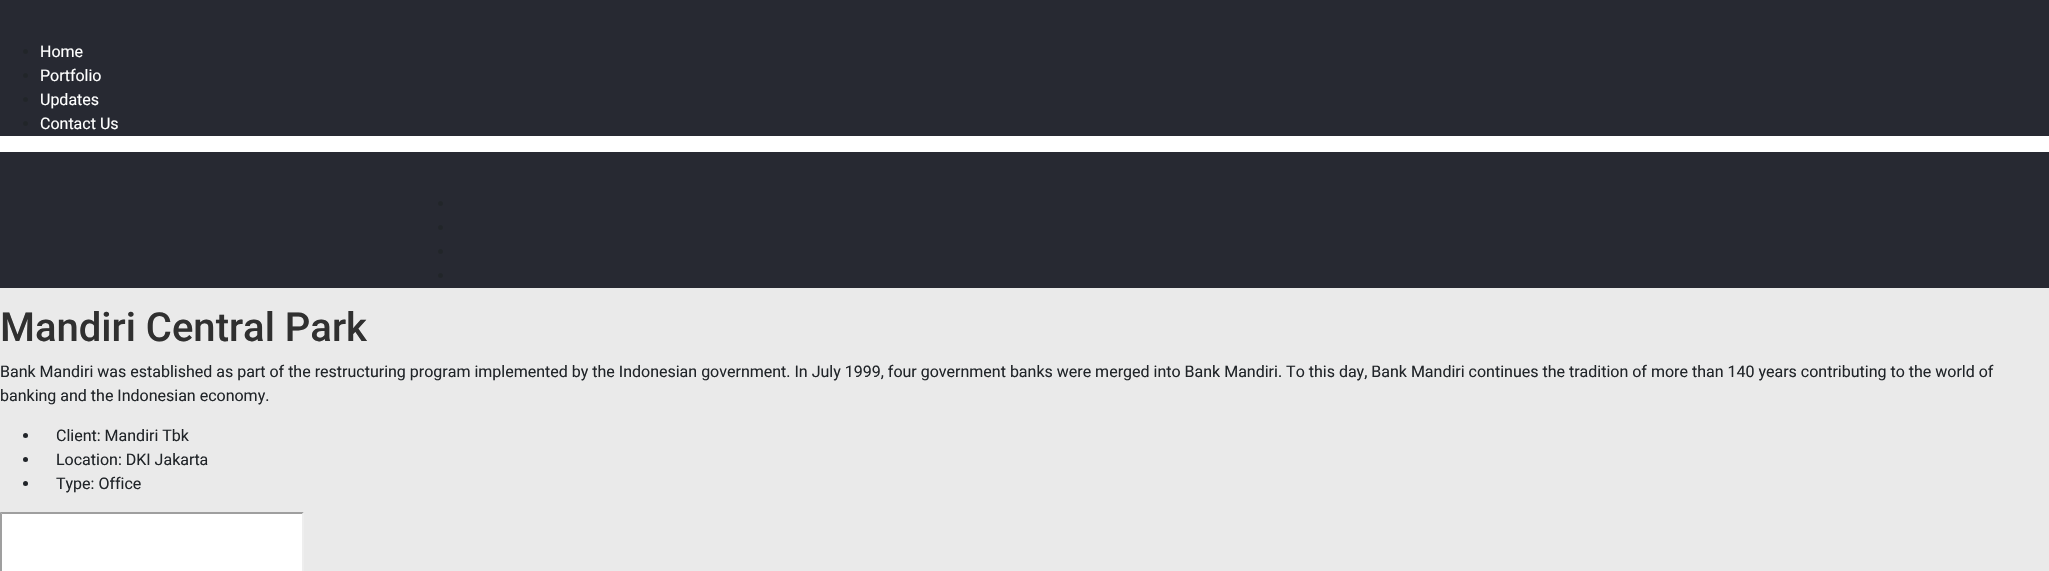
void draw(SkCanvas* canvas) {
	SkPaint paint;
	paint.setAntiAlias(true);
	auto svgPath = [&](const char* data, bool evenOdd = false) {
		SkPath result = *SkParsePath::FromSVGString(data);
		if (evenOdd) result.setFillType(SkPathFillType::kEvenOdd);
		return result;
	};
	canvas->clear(0xffeaeaea);
	paint.setColor(0xffffffff);
	canvas->drawRect(SkRect::MakeXYWH(0, 136, 2049, 16), paint);
	paint.setColor(0xff272932);
	canvas->drawRect(SkRect::MakeXYWH(0, 0, 2049, 136), paint);
	paint.setColor(0xff212529);
	canvas->drawCircle(25.5, 51.5, 2.5, paint);
	SkFont f1(fontMgr->matchFamilyStyle("Roboto", SkFontStyle::Normal()), 16);
	f1.setSubpixel(true);
	paint.setColor(0xffffffff);
	canvas->drawString("Home", 40, 57, f1, paint);
	paint.setColor(0xff212529);
	canvas->drawCircle(25.5, 75.5, 2.5, paint);
	paint.setColor(0xffffffff);
	canvas->drawString("Portfolio", 40, 81, f1, paint);
	paint.setColor(0xff212529);
	canvas->drawCircle(25.5, 99.5, 2.5, paint);
	paint.setColor(0xffffffff);
	canvas->drawString("Updates", 40, 105, f1, paint);
	paint.setColor(0xff212529);
	canvas->drawCircle(25.5, 123.5, 2.5, paint);
	paint.setColor(0xffffffff);
	canvas->drawString("Contact Us", 40, 129, f1, paint);
	paint.setColor(0xff272932);
	canvas->drawRect(SkRect::MakeXYWH(0, 152, 2049, 136), paint);
	paint.setColor(0xff212529);
	canvas->drawCircle(440.5, 203.5, 2.5, paint);
	canvas->drawCircle(440.5, 227.5, 2.5, paint);
	canvas->drawCircle(440.5, 251.5, 2.5, paint);
	canvas->drawCircle(440.5, 275.5, 2.5, paint);
	SkFont f2(fontMgr->matchFamilyStyle("Roboto", SkFontStyle(500, SkFontStyle::kNormal_Width, SkFontStyle::kUpright_Slant)), 40);
	f2.setSubpixel(true);
	paint.setColor(0xff303030);
	canvas->drawString("Mandiri Central Park", 0, 341, f2, paint);
	paint.setColor(0xff212529);
	canvas->drawString("Bank Mandiri was established as part of the restructuring program implemented by the Indonesian government. In July 1999, four government banks were merged into Bank Mandiri. To this day, Bank Mandiri continues the tradition of more than 140 years contributing to the world of", 0, 377, f1, paint);
	canvas->drawString("banking and the Indonesian economy.", 0, 401, f1, paint);
	canvas->drawCircle(25.5, 435.5, 2.5, paint);
	canvas->drawString("Client: Mandiri Tbk", 56, 441, f1, paint);
	canvas->drawCircle(25.5, 459.5, 2.5, paint);
	canvas->drawString("Location: DKI Jakarta", 56, 465, f1, paint);
	canvas->drawCircle(25.5, 483.5, 2.5, paint);
	canvas->drawString("Type: Office", 56, 489, f1, paint);
	paint.setColor(0xff9f9f9f);
	canvas->drawPath(svgPath("M0 512H304L302 514H2Z"), paint);
	canvas->drawPath(svgPath("M0 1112V512L2 514V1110Z"), paint);
	paint.setColor(0xffffffff);
	canvas->drawRect(SkRect::MakeXYWH(2, 514, 300, 57), paint);
	paint.setColor(0xffeeeeee);
	canvas->drawPath(svgPath("M304 512V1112L302 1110V514Z"), paint);
}
